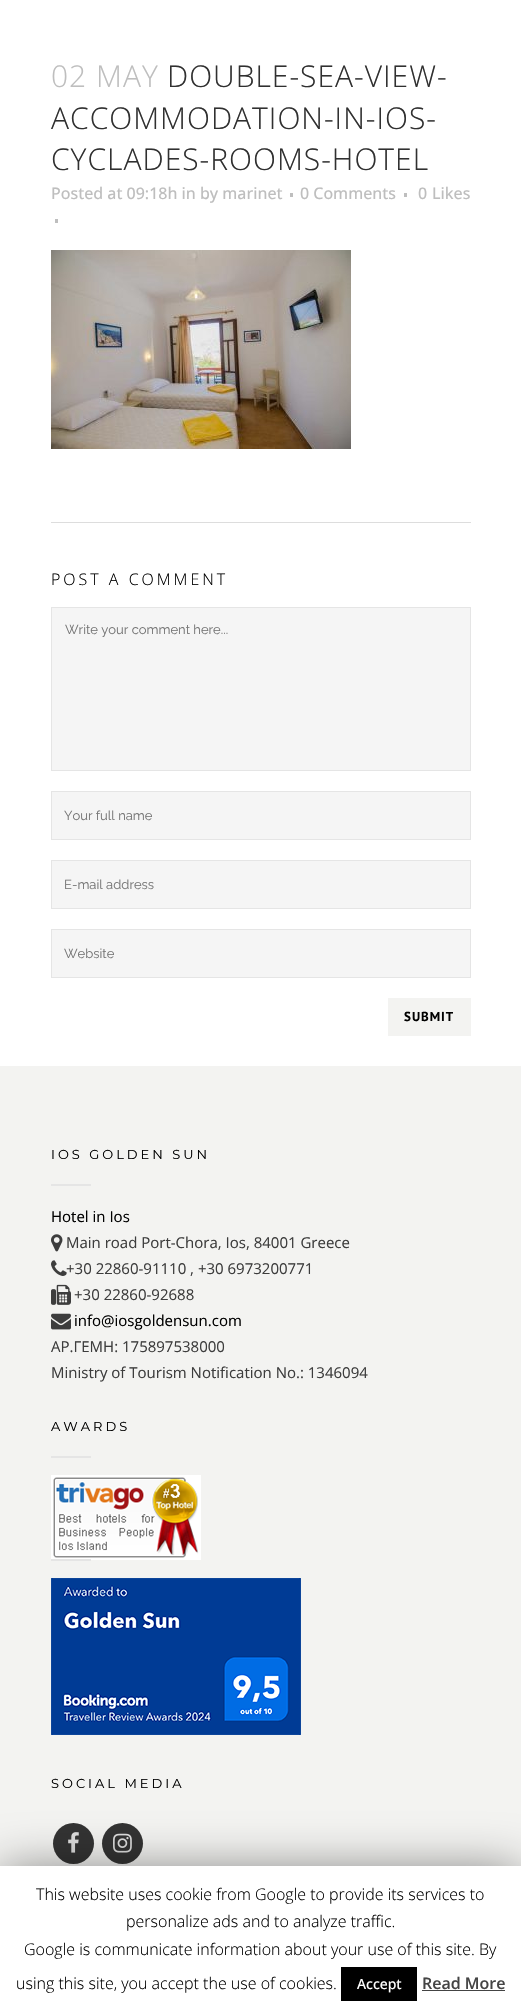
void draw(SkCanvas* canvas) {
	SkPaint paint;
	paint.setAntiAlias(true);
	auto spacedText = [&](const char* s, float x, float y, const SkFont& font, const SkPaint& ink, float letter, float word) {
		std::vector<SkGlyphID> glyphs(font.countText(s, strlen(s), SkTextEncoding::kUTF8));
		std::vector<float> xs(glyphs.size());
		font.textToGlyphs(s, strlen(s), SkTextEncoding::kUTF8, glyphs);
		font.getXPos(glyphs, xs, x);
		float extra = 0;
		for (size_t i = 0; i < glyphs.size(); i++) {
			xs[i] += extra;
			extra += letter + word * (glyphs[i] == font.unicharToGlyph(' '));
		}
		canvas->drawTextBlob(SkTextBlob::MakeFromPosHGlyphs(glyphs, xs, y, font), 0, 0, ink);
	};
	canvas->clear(0xffffffff);
	SkFont f1(fontMgr->matchFamilyStyle("Open Sans", SkFontStyle(300, SkFontStyle::kNormal_Width, SkFontStyle::kUpright_Slant)), 30);
	f1.setSubpixel(true);
	paint.setColor(0xffbebebe);
	spacedText("02 MAY", 51, 87, f1, paint, 1, 0);
	paint.setColor(0xff303030);
	spacedText("DOUBLE-SEA-VIEW-", 167, 87, f1, paint, 1, 0);
	spacedText("ACCOMMODATION-IN-IOS-", 51, 129, f1, paint, 1, 0);
	spacedText("CYCLADES-ROOMS-HOTEL", 51, 170, f1, paint, 1, 0);
	SkFont f2(fontMgr->matchFamilyStyle("Open Sans", SkFontStyle(500, SkFontStyle::kNormal_Width, SkFontStyle::kUpright_Slant)), 16);
	f2.setSubpixel(true);
	paint.setColor(0xffbebebe);
	canvas->drawString("Posted at 09:18h in by marinet", 51, 199, f2, paint);
	canvas->drawRect(SkRect::MakeXYWH(290, 193, 3, 4), paint);
	canvas->drawString("0 Comments", 300, 199, f2, paint);
	canvas->drawRect(SkRect::MakeXYWH(404, 193, 3, 4), paint);
	canvas->drawString("0", 418, 199, f2, paint);
	canvas->drawString("Likes", 432, 199, f2, paint);
	canvas->drawRect(SkRect::MakeXYWH(55, 219, 3, 4), paint);
	canvas->drawImageRect(SkImages::DeferredFromEncodedData(SkData::MakeFromFileName("img1.png")), SkRect::MakeXYWH(51, 250, 300, 199), SkSamplingOptions());
	paint.setColor(0xffdddddd);
	canvas->drawRect(SkRect::MakeXYWH(51, 522, 420, 1), paint);
	SkFont f3(fontMgr->matchFamilyStyle("Open Sans", SkFontStyle(300, SkFontStyle::kNormal_Width, SkFontStyle::kUpright_Slant)), 16);
	f3.setSubpixel(true);
	paint.setColor(0xff000000);
	spacedText("POST A COMMENT", 51, 585, f3, paint, 3, 0);
	paint.setColor(0xfff5f5f5);
	canvas->drawRect(SkRect::MakeXYWH(51.5, 607.5, 419, 163), paint);
	paint.setStroke(true);
	paint.setStrokeWidth(1);
	paint.setColor(0xffe5e5e5);
	canvas->drawRect(SkRect::MakeXYWH(51.5, 607.5, 419, 163), paint);
	SkFont f4(fontMgr->matchFamilyStyle("Raleway", SkFontStyle::Normal()), 13);
	f4.setSubpixel(true);
	paint.setStroke(false);
	paint.setColor(0xff757575);
	canvas->drawString("Write your comment here...", 65, 634, f4, paint);
	paint.setColor(0xfff5f5f5);
	canvas->drawRect(SkRect::MakeXYWH(51.5, 791.5, 419, 48), paint);
	paint.setStroke(true);
	paint.setColor(0xffe5e5e5);
	canvas->drawRect(SkRect::MakeXYWH(51.5, 791.5, 419, 48), paint);
	paint.setStroke(false);
	paint.setColor(0xff757575);
	canvas->drawString("Your full name", 64, 820, f4, paint);
	paint.setColor(0xfff5f5f5);
	canvas->drawRect(SkRect::MakeXYWH(51.5, 860.5, 419, 48), paint);
	paint.setStroke(true);
	paint.setColor(0xffe5e5e5);
	canvas->drawRect(SkRect::MakeXYWH(51.5, 860.5, 419, 48), paint);
	paint.setStroke(false);
	paint.setColor(0xff757575);
	canvas->drawString("E-mail address", 64, 889, f4, paint);
	paint.setColor(0xfff5f5f5);
	canvas->drawRect(SkRect::MakeXYWH(51.5, 929.5, 419, 48), paint);
	paint.setStroke(true);
	paint.setColor(0xffe5e5e5);
	canvas->drawRect(SkRect::MakeXYWH(51.5, 929.5, 419, 48), paint);
	paint.setStroke(false);
	paint.setColor(0xff757575);
	canvas->drawString("Website", 64, 958, f4, paint);
	paint.setColor(0xfff3f3f1);
	canvas->drawRect(SkRect::MakeXYWH(388, 998, 83, 38), paint);
	SkFont f5(fontMgr->matchFamilyStyle("PT Sans", SkFontStyle::Bold()), 13);
	f5.setSubpixel(true);
	paint.setColor(0xff000000);
	spacedText("SUBMIT", 404, 1021, f5, paint, 1, 0);
	paint.setColor(0xfff3f3f1);
	canvas->drawRect(SkRect::MakeXYWH(0, 1066, 521, 800), paint);
	SkFont f6(fontMgr->matchFamilyStyle("Montserrat", SkFontStyle::Normal()), 13);
	f6.setSubpixel(true);
	paint.setColor(0xff000000);
	spacedText("IOS GOLDEN SUN", 51, 1159, f6, paint, 3, 0);
	paint.setColor(0xffe5e5e5);
	canvas->drawRect(SkRect::MakeXYWH(51, 1184, 40, 2), paint);
	SkFont f7(fontMgr->matchFamilyStyle("Open Sans", SkFontStyle::Normal()), 15);
	f7.setSubpixel(true);
	paint.setColor(0xff000000);
	canvas->drawString("Hotel in Ios", 51, 1222, f7, paint);
	canvas->drawImageRect(SkImages::DeferredFromEncodedData(SkData::MakeFromFileName("img2.png")), SkRect::MakeXYWH(51, 1234, 12, 18), SkSamplingOptions());
	paint.setColor(0xff3d3d3d);
	canvas->drawString("Main road Port-Chora, Ios, 84001 Greece", 66, 1248, f7, paint);
	canvas->drawImageRect(SkImages::DeferredFromEncodedData(SkData::MakeFromFileName("img3.png")), SkRect::MakeXYWH(51, 1260, 16, 16), SkSamplingOptions());
	canvas->drawString("+30 22860-91110 , +30 6973200771", 66, 1274, f7, paint);
	canvas->drawImageRect(SkImages::DeferredFromEncodedData(SkData::MakeFromFileName("img4.png")), SkRect::MakeXYWH(51, 1284, 20, 21), SkSamplingOptions());
	canvas->drawString("+30 22860-92688", 74, 1300, f7, paint);
	canvas->drawImageRect(SkImages::DeferredFromEncodedData(SkData::MakeFromFileName("img5.png")), SkRect::MakeXYWH(51, 1313, 20, 17), SkSamplingOptions());
	paint.setColor(0xff000000);
	canvas->drawString("info@iosgoldensun.com", 74, 1326, f7, paint);
	paint.setColor(0xff3d3d3d);
	canvas->drawString("ΑΡ.ΓΕΜΗ: 175897538000", 51, 1352, f7, paint);
	canvas->drawString("Ministry of Tourism Notification No.: 1346094", 51, 1378, f7, paint);
	paint.setColor(0xff000000);
	spacedText("AWARDS", 51, 1431, f6, paint, 3, 0);
	paint.setColor(0xffe5e5e5);
	canvas->drawRect(SkRect::MakeXYWH(51, 1456, 40, 2), paint);
	canvas->drawImageRect(SkImages::DeferredFromEncodedData(SkData::MakeFromFileName("img6.png")), SkRect::MakeXYWH(51, 1475, 150, 85), SkSamplingOptions());
	canvas->drawRect(SkRect::MakeXYWH(51, 1559, 40, 2), paint);
	canvas->drawImageRect(SkImages::DeferredFromEncodedData(SkData::MakeFromFileName("img7.png")), SkRect::MakeXYWH(51, 1578, 250, 157), SkSamplingOptions());
	paint.setColor(0xff000000);
	spacedText("SOCIAL MEDIA", 51, 1788, f6, paint, 3, 0);
	paint.setColor(0xff333333);
	canvas->drawCircle(73.5, 1843.5, 20.5, paint);
	canvas->drawImageRect(SkImages::DeferredFromEncodedData(SkData::MakeFromFileName("img8.png")), SkRect::MakeXYWH(68, 1832, 11, 21), SkSamplingOptions());
	canvas->drawCircle(122.5, 1843.5, 20.5, paint);
	canvas->drawImageRect(SkImages::DeferredFromEncodedData(SkData::MakeFromFileName("img9.png")), SkRect::MakeXYWH(113, 1833, 19, 20), SkSamplingOptions());
	paint.setColor(0x80000000);
	paint.setMaskFilter(SkMaskFilter::MakeBlur(kNormal_SkBlurStyle, 25));
	canvas->drawRect(SkRect::MakeXYWH(0, 1871, 521, 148), paint);
	paint.setMaskFilter(nullptr);
	paint.setColor(0xffffffff);
	canvas->drawRect(SkRect::MakeXYWH(0, 1866, 521, 148), paint);
	paint.setColor(0xff000000);
	canvas->drawString("This website uses cookie from Google to provide its services to", 36, 1900, f3, paint);
	canvas->drawString("personalize ads and to analyze traffic.", 126, 1927, f3, paint);
	canvas->drawString("Google is communicate information about your use of this site. By", 24, 1955, f3, paint);
	canvas->drawString("using this site, you accept the use of cookies.", 16, 1989, f3, paint);
	canvas->drawRect(SkRect::MakeXYWH(341, 1967, 76, 34), paint);
	SkFont f8(fontMgr->matchFamilyStyle("Open Sans", SkFontStyle(500, SkFontStyle::kNormal_Width, SkFontStyle::kUpright_Slant)), 14);
	f8.setSubpixel(true);
	paint.setColor(0xffffffff);
	canvas->drawString("Accept", 357, 1989, f8, paint);
	SkFont f9(fontMgr->matchFamilyStyle("Open Sans", SkFontStyle(600, SkFontStyle::kNormal_Width, SkFontStyle::kUpright_Slant)), 16);
	f9.setSubpixel(true);
	paint.setColor(0xff444444);
	canvas->drawString("Read More", 422, 1989, f9, paint);
	canvas->drawRect(SkRect::MakeXYWH(422, 1990, 83, 1), paint);
}
